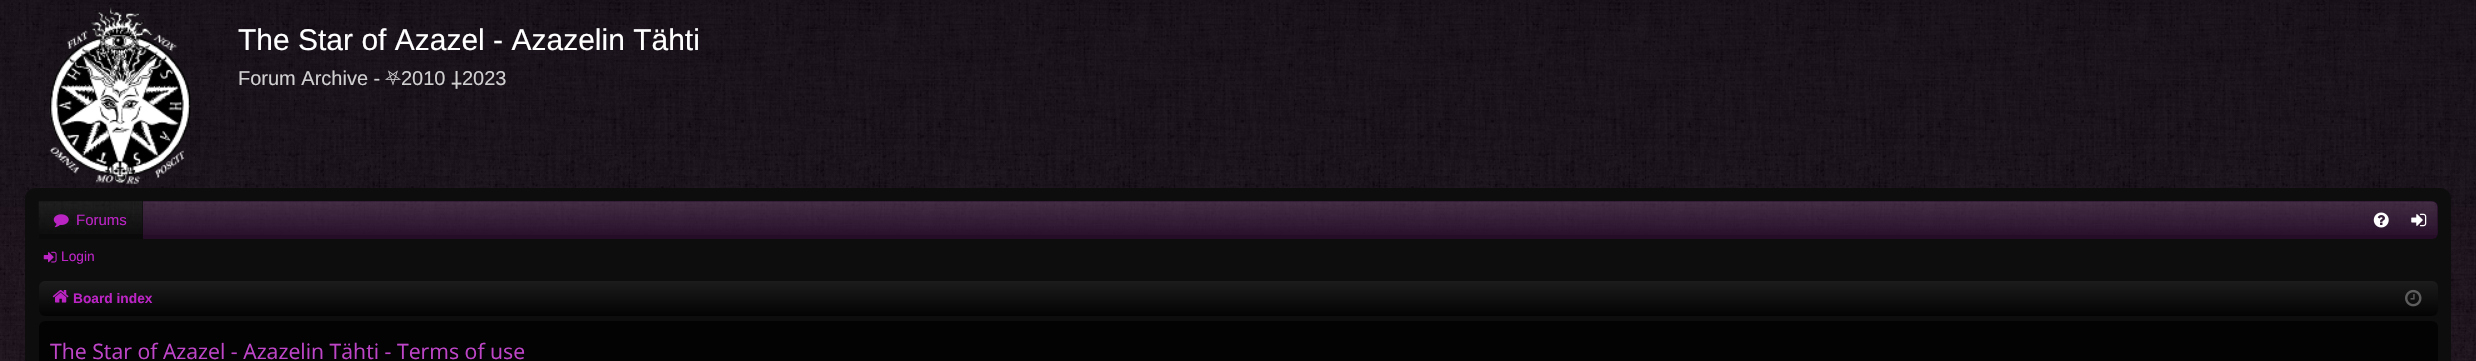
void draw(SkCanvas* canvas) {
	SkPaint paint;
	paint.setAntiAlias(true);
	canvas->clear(0xff110612);
	canvas->drawImageRect(SkImages::DeferredFromEncodedData(SkData::MakeFromFileName("img1.png")), SkRect::MakeXYWH(0, 0, 2476, 361), SkSamplingOptions());
	canvas->drawImageRect(SkImages::DeferredFromEncodedData(SkData::MakeFromFileName("img2.png")), SkRect::MakeXYWH(49, 5, 143, 179), SkSamplingOptions());
	SkFont f1(fontMgr->matchFamilyStyle("Liberation Sans", SkFontStyle::Normal()), 30);
	f1.setSubpixel(true);
	paint.setColor(0xffffffff);
	canvas->drawString("The Star of Azazel - Azazelin Tähti", 238, 50, f1, paint);
	SkFont f2(fontMgr->matchFamilyStyle("Liberation Sans", SkFontStyle::Normal()), 20);
	f2.setSubpixel(true);
	paint.setColor(0xffd1d0d1);
	canvas->drawString("Forum Archive -", 238, 85, f2, paint);
	SkFont f3(fontMgr->matchFamilyStyle("FreeSans", SkFontStyle::Normal()), 20);
	f3.setSubpixel(true);
	canvas->drawString("⛧", 385, 85, f3, paint);
	canvas->drawString("2010", 401, 85, f2, paint);
	canvas->drawString("⸸", 451, 85, f3, paint);
	canvas->drawString("2023", 462, 85, f2, paint);
	paint.setColor(0xff0d0d0d);
	canvas->drawRoundRect(SkRect::MakeXYWH(25.5, 188.5, 2425, 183), 9.5, 9.5, paint);
	paint.setStroke(true);
	paint.setStrokeWidth(1);
	canvas->drawRoundRect(SkRect::MakeXYWH(25.5, 188.5, 2425, 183), 9.5, 9.5, paint);
	paint.setStroke(false);
	paint.setColor(0xff250c27);
	canvas->drawRoundRect(SkRect::MakeXYWH(39, 201, 2399, 38), 6, 6, paint);
	canvas->drawImageRect(SkImages::DeferredFromEncodedData(SkData::MakeFromFileName("img3.png")), SkRect::MakeXYWH(143, 201, 2295, 34), SkSamplingOptions());
	paint.setColor(0xff0b0a0b);
	canvas->drawRect(SkRect::MakeXYWH(39, 201, 104, 38), paint);
	canvas->drawImageRect(SkImages::DeferredFromEncodedData(SkData::MakeFromFileName("img4.png")), SkRect::MakeXYWH(38, 201, 105, 33), SkSamplingOptions());
	canvas->drawImageRect(SkImages::DeferredFromEncodedData(SkData::MakeFromFileName("img5.png")), SkRect::MakeXYWH(53, 214, 16, 14), SkSamplingOptions());
	SkFont f4(fontMgr->matchFamilyStyle("Liberation Sans", SkFontStyle::Normal()), 15);
	f4.setSubpixel(true);
	paint.setColor(0xffba24c3);
	canvas->drawString("Forums", 76, 225, f4, paint);
	canvas->drawImageRect(SkImages::DeferredFromEncodedData(SkData::MakeFromFileName("img6.png")), SkRect::MakeXYWH(2373, 212, 16, 16), SkSamplingOptions());
	canvas->drawImageRect(SkImages::DeferredFromEncodedData(SkData::MakeFromFileName("img7.png")), SkRect::MakeXYWH(2411, 213, 16, 14), SkSamplingOptions());
	canvas->drawImageRect(SkImages::DeferredFromEncodedData(SkData::MakeFromFileName("img8.png")), SkRect::MakeXYWH(43, 251, 14, 12), SkSamplingOptions());
	SkFont f5(fontMgr->matchFamilyStyle("Liberation Sans", SkFontStyle::Normal()), 13.75);
	f5.setSubpixel(true);
	canvas->drawString("Login", 61, 261, f5, paint);
	{
		const SkColor colors[] = {0xff1c1c1c, 0xff030303};
		const float stops[] = {0, 1};
		const SkPoint ends[] = {{1238, 281}, {1238, 316}};
		paint.setShader(SkGradientShader::MakeLinear(ends, colors, stops, 2, SkTileMode::kClamp));
		paint.setAlpha(255);
	}
	canvas->drawRoundRect(SkRect::MakeXYWH(39, 281, 2399, 35), 6, 6, paint);
	canvas->drawImageRect(SkImages::DeferredFromEncodedData(SkData::MakeFromFileName("img9.png")), SkRect::MakeXYWH(52, 290, 17, 13), SkSamplingOptions());
	SkFont f6(fontMgr->matchFamilyStyle("Liberation Sans", SkFontStyle::Bold()), 13.75);
	f6.setSubpixel(true);
	paint.setShader(nullptr);
	paint.setColor(0xffba24c3);
	canvas->drawString("Board index", 73, 303, f6, paint);
	canvas->drawImageRect(SkImages::DeferredFromEncodedData(SkData::MakeFromFileName("img10.png")), SkRect::MakeXYWH(2405, 289, 17, 18), SkSamplingOptions());
	paint.setColor(0xff030303);
	canvas->drawRoundRect(SkRect::MakeXYWH(39, 321, 2399, 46), 6, 6, paint);
	SkFont f7(fontMgr->matchFamilyStyle("Open Sans", SkFontStyle::Normal()), 21.25);
	f7.setSubpixel(true);
	paint.setColor(0xffbe45c8);
	canvas->drawString("The Star of Azazel - Azazelin Tähti - Terms of use", 50, 359, f7, paint);
}
